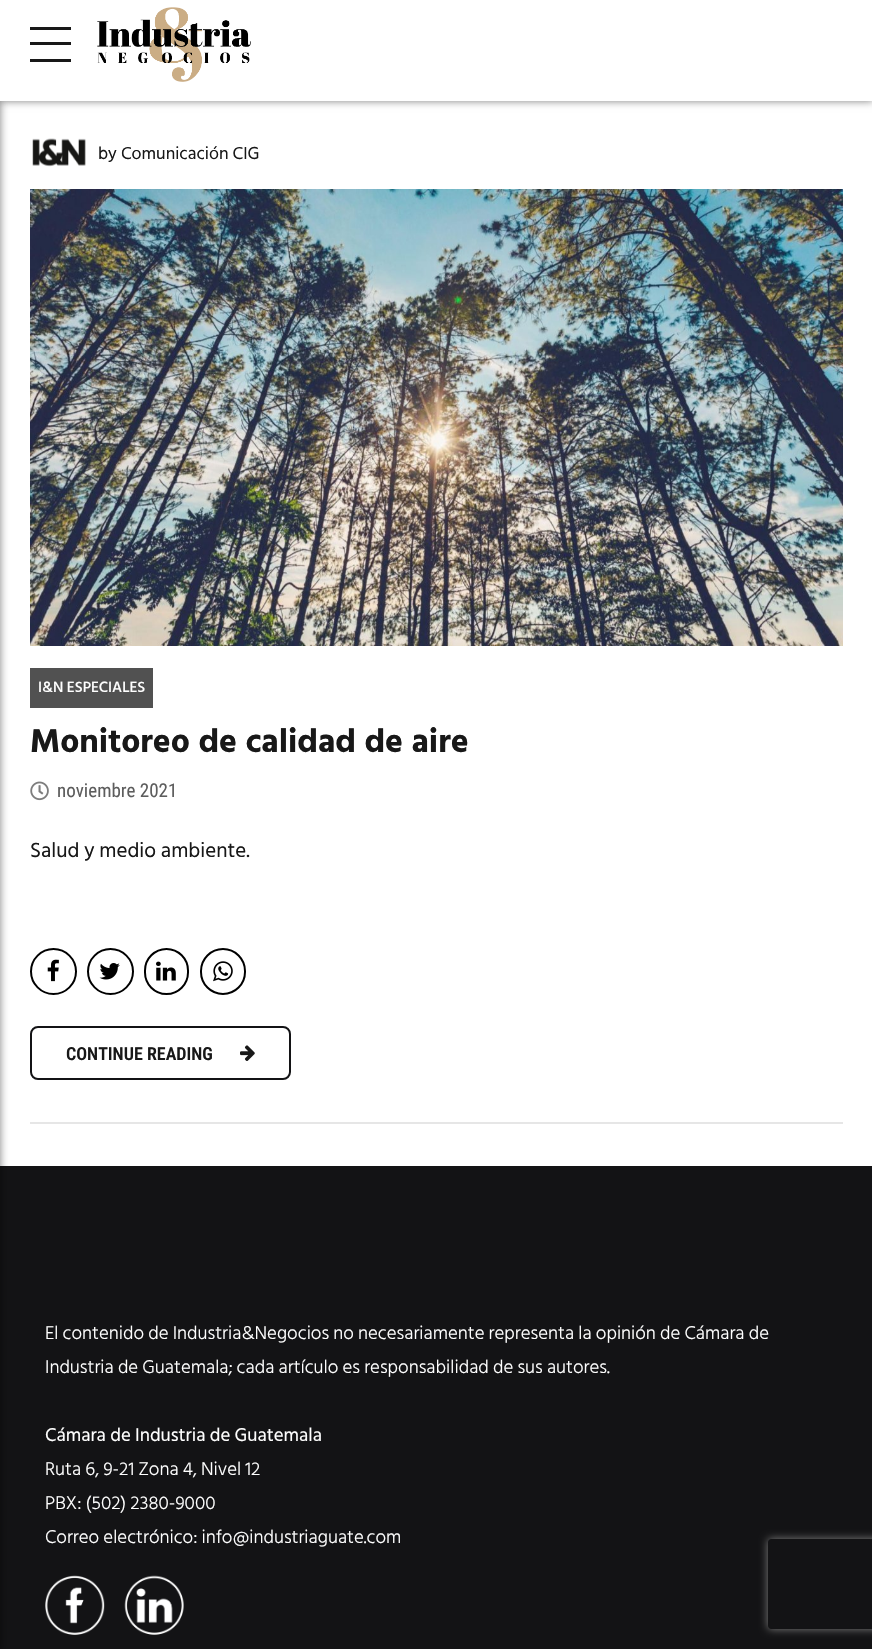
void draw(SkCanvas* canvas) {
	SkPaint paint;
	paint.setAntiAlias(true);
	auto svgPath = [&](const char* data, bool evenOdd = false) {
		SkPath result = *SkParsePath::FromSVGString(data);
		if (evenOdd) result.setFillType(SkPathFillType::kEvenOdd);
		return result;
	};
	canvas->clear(0xffffffff);
	paint.setColor(0xff131315);
	canvas->drawRect(SkRect::MakeXYWH(0, 1166, 872, 483), paint);
	paint.setColor(0x80000000);
	paint.setMaskFilter(SkMaskFilter::MakeBlur(kNormal_SkBlurStyle, 4));
	canvas->drawRect(SkRect::MakeXYWH(-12, 0, 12, 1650), paint);
	paint.setMaskFilter(nullptr);
	paint.setMaskFilter(SkMaskFilter::MakeBlur(kNormal_SkBlurStyle, 4));
	canvas->drawRect(SkRect::MakeXYWH(0, -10, 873, 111), paint);
	paint.setMaskFilter(nullptr);
	paint.setColor(0xffffffff);
	canvas->drawRect(SkRect::MakeXYWH(0, 0, 872, 101), paint);
	paint.setColor(0xff181818);
	canvas->drawRect(SkRect::MakeXYWH(30, 27, 41, 3), paint);
	canvas->drawRect(SkRect::MakeXYWH(30, 42, 41, 3), paint);
	canvas->drawRect(SkRect::MakeXYWH(30, 59, 41, 3), paint);
	canvas->drawImageRect(SkImages::DeferredFromEncodedData(SkData::MakeFromFileName("img1.png")), SkRect::MakeXYWH(97, 7, 154, 75), SkSamplingOptions());
	paint.setColor(0xffe6e6e6);
	canvas->drawRect(SkRect::MakeXYWH(30, 1122, 813, 2), paint);
	canvas->drawImageRect(SkImages::DeferredFromEncodedData(SkData::MakeFromFileName("img2.png")), SkRect::MakeXYWH(32, 138, 54, 29), SkSamplingOptions());
	SkFont f1(fontMgr->matchFamilyStyle("Hind Siliguri", SkFontStyle::Normal()), 17.75);
	f1.setSubpixel(true);
	paint.setColor(0xff181818);
	canvas->drawString("by Comunicación CIG", 98, 159, f1, paint);
	canvas->drawImageRect(SkImages::DeferredFromEncodedData(SkData::MakeFromFileName("img3.png")), SkRect::MakeXYWH(30, 189, 813, 457), SkSamplingOptions());
	paint.setColor(0xff515151);
	canvas->drawRect(SkRect::MakeXYWH(30, 668, 123, 40), paint);
	SkFont f2(fontMgr->matchFamilyStyle("Hind Siliguri", SkFontStyle(500, SkFontStyle::kNormal_Width, SkFontStyle::kUpright_Slant)), 15.25);
	f2.setSubpixel(true);
	paint.setColor(0xffffffff);
	canvas->drawString("I&N ESPECIALES", 38, 692, f2, paint);
	SkFont f3(fontMgr->matchFamilyStyle("Hind Siliguri", SkFontStyle::Bold()), 33.75);
	f3.setSubpixel(true);
	paint.setColor(0xff181818);
	canvas->drawString("Monitoreo de calidad de aire", 30, 752, f3, paint);
	canvas->drawImageRect(SkImages::DeferredFromEncodedData(SkData::MakeFromFileName("img4.png")), SkRect::MakeXYWH(30, 781, 19, 20), SkSamplingOptions());
	SkFont f4(fontMgr->matchFamilyStyle("Roboto Condensed", SkFontStyle::Normal()), 19);
	f4.setSubpixel(true);
	paint.setColor(0xff5d5d5d);
	canvas->drawString("noviembre 2021", 57, 797, f4, paint);
	SkFont f5(fontMgr->matchFamilyStyle("Hind Siliguri", SkFontStyle::Normal()), 21);
	f5.setSubpixel(true);
	paint.setColor(0xff181818);
	canvas->drawString("Salud y medio ambiente.", 30, 857, f5, paint);
	paint.setStroke(true);
	paint.setStrokeWidth(2);
	paint.setColor(0xff000000);
	canvas->drawCircle(53.5, 971.5, 22.5, paint);
	canvas->drawImageRect(SkImages::DeferredFromEncodedData(SkData::MakeFromFileName("img5.png")), SkRect::MakeXYWH(47, 959, 12, 23), SkSamplingOptions());
	canvas->drawCircle(110.5, 971.5, 22.5, paint);
	canvas->drawImageRect(SkImages::DeferredFromEncodedData(SkData::MakeFromFileName("img6.png")), SkRect::MakeXYWH(99, 963, 21, 17), SkSamplingOptions());
	canvas->drawRoundRect(SkRect::MakeXYWH(145, 949, 43, 45), 21.5, 21.5, paint);
	canvas->drawImageRect(SkImages::DeferredFromEncodedData(SkData::MakeFromFileName("img7.png")), SkRect::MakeXYWH(156, 961, 20, 20), SkSamplingOptions());
	canvas->drawRoundRect(SkRect::MakeXYWH(201, 949, 44, 45), 22, 22, paint);
	canvas->drawImageRect(SkImages::DeferredFromEncodedData(SkData::MakeFromFileName("img8.png")), SkRect::MakeXYWH(213, 961, 20, 21), SkSamplingOptions());
	paint.setColor(0xff131315);
	canvas->drawRoundRect(SkRect::MakeXYWH(31, 1027, 259, 52), 7, 7, paint);
	SkFont f6(fontMgr->matchFamilyStyle("Roboto Condensed", SkFontStyle(600, SkFontStyle::kNormal_Width, SkFontStyle::kUpright_Slant)), 18);
	f6.setSubpixel(true);
	paint.setStroke(false);
	paint.setColor(0xff181818);
	canvas->drawString("CONTINUE READING", 66, 1060, f6, paint);
	canvas->drawImageRect(SkImages::DeferredFromEncodedData(SkData::MakeFromFileName("img9.png")), SkRect::MakeXYWH(240, 1045, 15, 16), SkSamplingOptions());
	SkFont f7(fontMgr->matchFamilyStyle("Hind Siliguri", SkFontStyle(300, SkFontStyle::kNormal_Width, SkFontStyle::kUpright_Slant)), 18.9);
	f7.setSubpixel(true);
	paint.setColor(0xffffffff);
	canvas->drawString("El contenido de Industria&Negocios no necesariamente representa la opinión de Cámara de", 45, 1339, f7, paint);
	canvas->drawString("Industria de Guatemala; cada artículo es responsabilidad de sus autores.", 45, 1373, f7, paint);
	SkFont f8(fontMgr->matchFamilyStyle("Hind Siliguri", SkFontStyle::Normal()), 18.9);
	f8.setSubpixel(true);
	canvas->drawString("Cámara de Industria de Guatemala", 45, 1441, f8, paint);
	canvas->drawString("Ruta 6, 9-21 Zona 4, Nivel 12", 45, 1475, f7, paint);
	canvas->drawString("PBX: (502) 2380-9000", 45, 1509, f7, paint);
	canvas->drawString("Correo electrónico: info@industriaguate.com", 45, 1543, f7, paint);
	canvas->drawImageRect(SkImages::DeferredFromEncodedData(SkData::MakeFromFileName("img10.png")), SkRect::MakeXYWH(45, 1575, 60, 60), SkSamplingOptions());
	canvas->drawImageRect(SkImages::DeferredFromEncodedData(SkData::MakeFromFileName("img11.png")), SkRect::MakeXYWH(124, 1575, 60, 60), SkSamplingOptions());
	canvas->save();
	canvas->clipPath(svgPath("M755 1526H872V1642H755ZM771 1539H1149C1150.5 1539 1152 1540.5 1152 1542V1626C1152 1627.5 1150.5 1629 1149 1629H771C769.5 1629 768 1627.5 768 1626V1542C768 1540.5 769.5 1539 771 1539Z", true), true);
	paint.setColor(0xff808080);
	paint.setMaskFilter(SkMaskFilter::MakeBlur(kNormal_SkBlurStyle, 4));
	canvas->drawRoundRect(SkRect::MakeXYWH(768, 1539, 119, 90), 3, 3, paint);
	paint.setMaskFilter(nullptr);
	canvas->restore();
}
